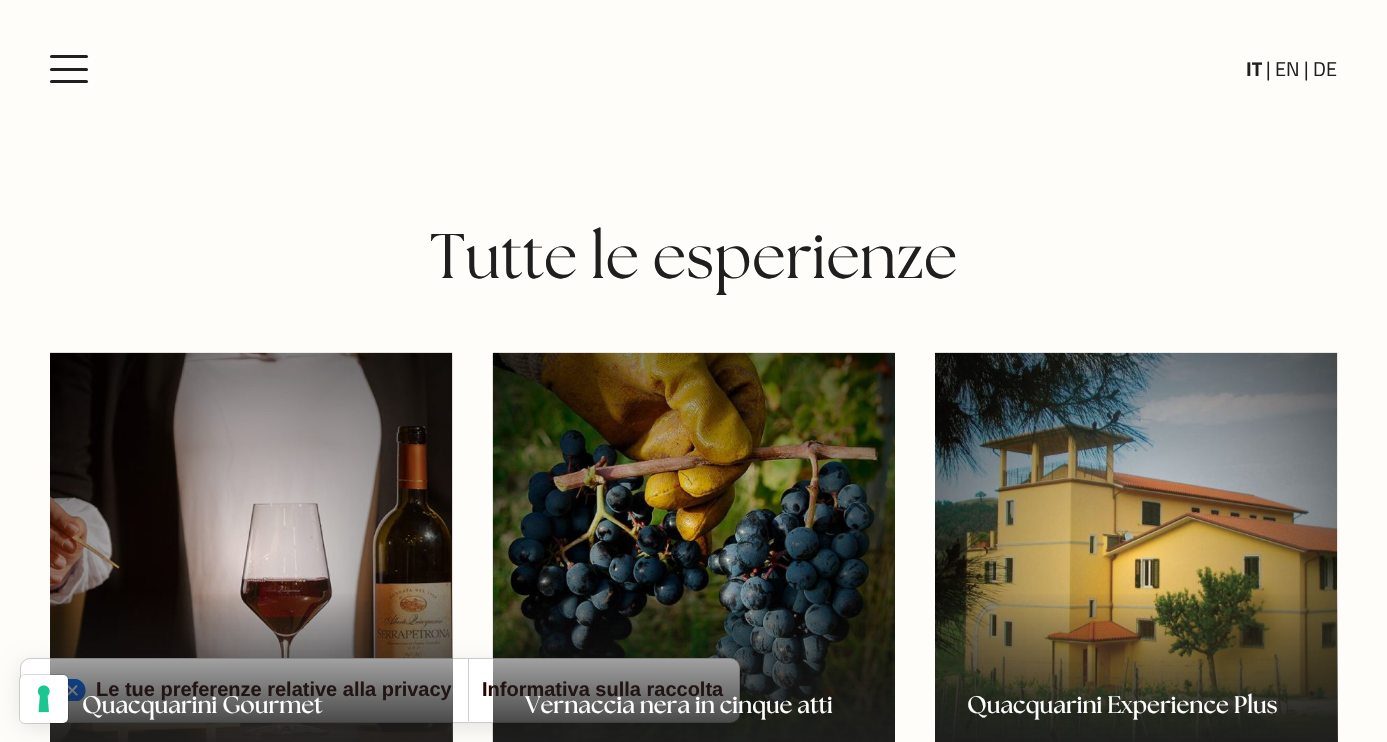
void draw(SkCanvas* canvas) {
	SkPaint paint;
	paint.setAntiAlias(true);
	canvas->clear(0xfffffdfa);
	canvas->drawImageRect(SkImages::DeferredFromEncodedData(SkData::MakeFromFileName("img2.png")), SkRect::MakeXYWH(50, 352, 403, 390), SkSamplingOptions());
	canvas->drawImageRect(SkImages::DeferredFromEncodedData(SkData::MakeFromFileName("img3.png")), SkRect::MakeXYWH(492, 352, 403, 390), SkSamplingOptions());
	paint.setColor(0x1a000000);
	paint.setMaskFilter(SkMaskFilter::MakeBlur(kNormal_SkBlurStyle, 10));
	canvas->drawRoundRect(SkRect::MakeXYWH(20, 663, 720, 65), 10, 10, paint);
	paint.setMaskFilter(nullptr);
	paint.setColor(0xffffffff);
	canvas->drawRoundRect(SkRect::MakeXYWH(20, 658, 720, 65), 10, 10, paint);
	paint.setStroke(true);
	paint.setStrokeWidth(1);
	paint.setColor(0x33000000);
	canvas->drawRoundRect(SkRect::MakeXYWH(20.5, 658.5, 719, 64), 9.5, 9.5, paint);
	canvas->drawImageRect(SkImages::DeferredFromEncodedData(SkData::MakeFromFileName("img5.png")), SkRect::MakeXYWH(67, 679, 19, 22), SkSamplingOptions());
	SkFont f1(fontMgr->matchFamilyStyle("Liberation Sans", SkFontStyle::Bold()), 20);
	f1.setSubpixel(true);
	paint.setStroke(false);
	paint.setColor(0xff280404);
	canvas->drawString("Le tue preferenze relative alla privacy", 96, 696, f1, paint);
	{
		const SkColor colors[] = {0x001e1e1e, 0xff1e1e1e};
		const float stops[] = {0, 1};
		const SkPoint ends[] = {{251, 590}, {251, 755}};
		paint.setShader(SkGradientShader::MakeLinear(ends, colors, stops, 2, SkTileMode::kClamp));
		paint.setAlpha(255);
	}
	canvas->drawRect(SkRect::MakeXYWH(50, 594, 403, 148), paint);
	paint.setStroke(true);
	paint.setShader(nullptr);
	paint.setColor(0x26000000);
	canvas->drawRoundRect(SkRect::MakeXYWH(19.5, 674.5, 49, 49), 5.5, 5.5, paint);
	paint.setStroke(false);
	paint.setColor(0xffffffff);
	canvas->drawRoundRect(SkRect::MakeXYWH(20, 675, 48, 48), 5, 5, paint);
	canvas->drawImageRect(SkImages::DeferredFromEncodedData(SkData::MakeFromFileName("img1.png")), SkRect::MakeXYWH(37, 685, 13, 28), SkSamplingOptions());
	paint.setColor(0xff1f1f1f);
	canvas->drawRoundRect(SkRect::MakeXYWH(50, 68, 38, 3), 1.5, 1.5, paint);
	canvas->drawRoundRect(SkRect::MakeXYWH(50, 55, 38, 3), 1.5, 1.5, paint);
	canvas->drawRoundRect(SkRect::MakeXYWH(50, 80, 38, 3), 1.5, 1.5, paint);
	SkFont f2(fontMgr->matchFamilyStyle("Titillium Web", SkFontStyle::Bold()), 20);
	f2.setSubpixel(true);
	canvas->drawString("IT", 1246, 76, f2, paint);
	SkFont f3(fontMgr->matchFamilyStyle("Titillium Web", SkFontStyle::Normal()), 20);
	f3.setSubpixel(true);
	canvas->drawString("| EN | DE", 1266, 76, f3, paint);
	SkFont f4(fontMgr->matchFamilyStyle("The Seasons", SkFontStyle::Normal()), 62.75);
	f4.setSubpixel(true);
	canvas->drawString("Tutte le esperienze", 430, 278, f4, paint);
	SkFont f5(fontMgr->matchFamilyStyle("The Seasons", SkFontStyle::Bold()), 24);
	f5.setSubpixel(true);
	paint.setColor(0xffffffff);
	canvas->drawString("Quacquarini Gourmet", 82, 713, f5, paint);
	paint.setColor(0xff280404);
	canvas->drawString("Informativa sulla raccolta", 482, 696, f1, paint);
	{
		const SkColor colors[] = {0x001e1e1e, 0xff1e1e1e};
		const float stops[] = {0, 1};
		const SkPoint ends[] = {{694, 590}, {694, 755}};
		paint.setShader(SkGradientShader::MakeLinear(ends, colors, stops, 2, SkTileMode::kClamp));
		paint.setAlpha(255);
	}
	canvas->drawRect(SkRect::MakeXYWH(493, 594, 402, 148), paint);
	paint.setShader(nullptr);
	paint.setColor(0xffffffff);
	canvas->drawString("Vernaccia nera in cinque atti", 525, 713, f5, paint);
	canvas->drawImageRect(SkImages::DeferredFromEncodedData(SkData::MakeFromFileName("img4.png")), SkRect::MakeXYWH(935, 352, 403, 390), SkSamplingOptions());
	{
		const SkColor colors[] = {0x001e1e1e, 0xff1e1e1e};
		const float stops[] = {0, 1};
		const SkPoint ends[] = {{1136, 590}, {1136, 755}};
		paint.setShader(SkGradientShader::MakeLinear(ends, colors, stops, 2, SkTileMode::kClamp));
		paint.setAlpha(255);
	}
	canvas->drawRect(SkRect::MakeXYWH(935, 594, 403, 148), paint);
	paint.setShader(nullptr);
	paint.setColor(0xffffffff);
	canvas->drawString("Quacquarini Experience Plus", 967, 713, f5, paint);
	paint.setColor(0xffcccccc);
	canvas->drawRect(SkRect::MakeXYWH(468, 659, 1, 62), paint);
}
